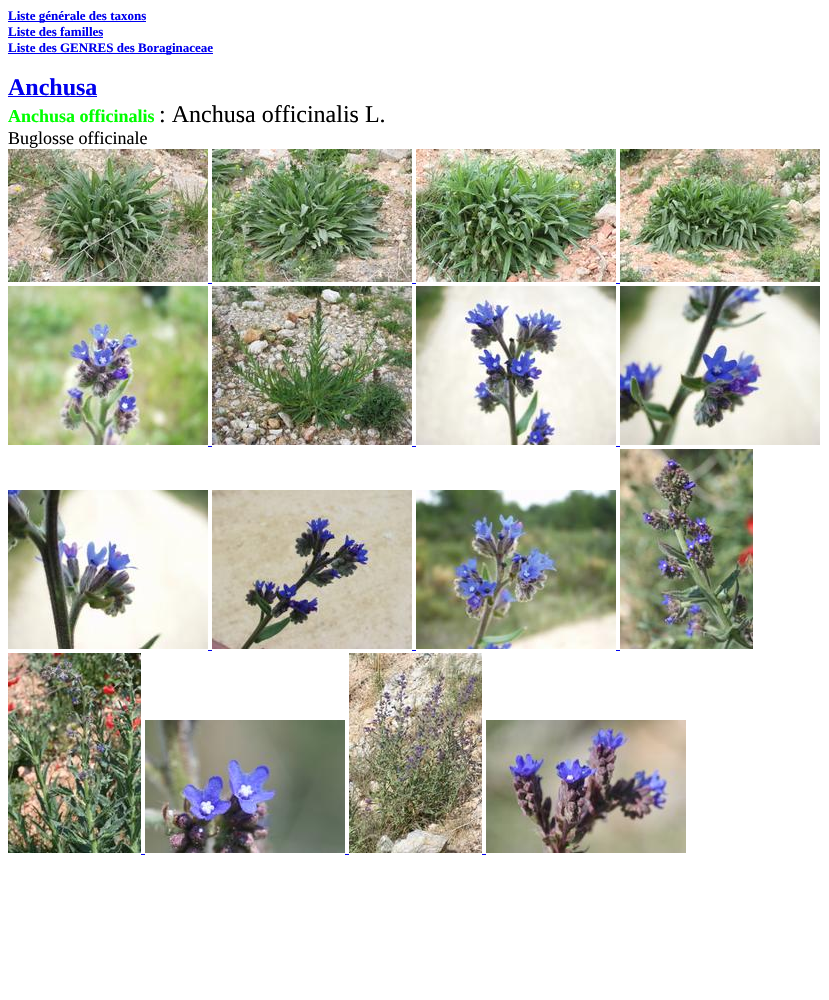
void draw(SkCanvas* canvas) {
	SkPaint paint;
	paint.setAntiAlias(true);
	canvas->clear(0xffffffff);
	paint.setColor(0xff0000ee);
	canvas->drawRect(SkRect::MakeXYWH(8, 21, 138, 1), paint);
	SkFont f1(fontMgr->matchFamilyStyle("Liberation Serif", SkFontStyle::Bold()), 13);
	f1.setSubpixel(true);
	canvas->drawString("Liste générale des taxons", 8, 20, f1, paint);
	canvas->drawString("Liste des familles", 8, 36, f1, paint);
	canvas->drawRect(SkRect::MakeXYWH(8, 37, 95, 1), paint);
	canvas->drawRect(SkRect::MakeXYWH(8, 53, 205, 1), paint);
	canvas->drawString("Liste des GENRES des Boraginaceae", 8, 52, f1, paint);
	SkFont f2(fontMgr->matchFamilyStyle("Liberation Serif", SkFontStyle::Bold()), 24);
	f2.setSubpixel(true);
	canvas->drawString("Anchusa", 8, 95, f2, paint);
	canvas->drawRect(SkRect::MakeXYWH(8, 96, 89, 1), paint);
	SkFont f3(fontMgr->matchFamilyStyle("Liberation Serif", SkFontStyle::Bold()), 18);
	f3.setSubpixel(true);
	paint.setColor(0xff00ff00);
	canvas->drawString("Anchusa officinalis", 8, 122, f3, paint);
	SkFont f4(fontMgr->matchFamilyStyle("Liberation Serif", SkFontStyle::Normal()), 24);
	f4.setSubpixel(true);
	paint.setColor(0xff000000);
	canvas->drawString(": Anchusa officinalis L.", 159, 122, f4, paint);
	SkFont f5(fontMgr->matchFamilyStyle("Liberation Serif", SkFontStyle::Normal()), 18);
	f5.setSubpixel(true);
	canvas->drawString("Buglosse officinale", 8, 144, f5, paint);
	canvas->drawImageRect(SkImages::DeferredFromEncodedData(SkData::MakeFromFileName("img1.png")), SkRect::MakeXYWH(8, 149, 200, 133), SkSamplingOptions());
	canvas->drawImageRect(SkImages::DeferredFromEncodedData(SkData::MakeFromFileName("img2.png")), SkRect::MakeXYWH(212, 149, 200, 133), SkSamplingOptions());
	canvas->drawImageRect(SkImages::DeferredFromEncodedData(SkData::MakeFromFileName("img3.png")), SkRect::MakeXYWH(416, 149, 200, 133), SkSamplingOptions());
	canvas->drawImageRect(SkImages::DeferredFromEncodedData(SkData::MakeFromFileName("img4.png")), SkRect::MakeXYWH(620, 149, 200, 133), SkSamplingOptions());
	paint.setColor(0xff0000ee);
	canvas->drawRect(SkRect::MakeXYWH(208, 283, 4, 1), paint);
	canvas->drawRect(SkRect::MakeXYWH(412, 283, 4, 1), paint);
	canvas->drawRect(SkRect::MakeXYWH(616, 283, 4, 1), paint);
	canvas->drawImageRect(SkImages::DeferredFromEncodedData(SkData::MakeFromFileName("img5.png")), SkRect::MakeXYWH(8, 286, 200, 159), SkSamplingOptions());
	canvas->drawImageRect(SkImages::DeferredFromEncodedData(SkData::MakeFromFileName("img6.png")), SkRect::MakeXYWH(212, 286, 200, 159), SkSamplingOptions());
	canvas->drawImageRect(SkImages::DeferredFromEncodedData(SkData::MakeFromFileName("img7.png")), SkRect::MakeXYWH(416, 286, 200, 159), SkSamplingOptions());
	canvas->drawImageRect(SkImages::DeferredFromEncodedData(SkData::MakeFromFileName("img8.png")), SkRect::MakeXYWH(620, 286, 200, 159), SkSamplingOptions());
	canvas->drawRect(SkRect::MakeXYWH(208, 446, 4, 1), paint);
	canvas->drawRect(SkRect::MakeXYWH(412, 446, 4, 1), paint);
	canvas->drawRect(SkRect::MakeXYWH(616, 446, 4, 1), paint);
	canvas->drawImageRect(SkImages::DeferredFromEncodedData(SkData::MakeFromFileName("img9.png")), SkRect::MakeXYWH(8, 490, 200, 159), SkSamplingOptions());
	canvas->drawImageRect(SkImages::DeferredFromEncodedData(SkData::MakeFromFileName("img10.png")), SkRect::MakeXYWH(212, 490, 200, 159), SkSamplingOptions());
	canvas->drawImageRect(SkImages::DeferredFromEncodedData(SkData::MakeFromFileName("img11.png")), SkRect::MakeXYWH(416, 490, 200, 159), SkSamplingOptions());
	canvas->drawImageRect(SkImages::DeferredFromEncodedData(SkData::MakeFromFileName("img12.png")), SkRect::MakeXYWH(620, 449, 133, 200), SkSamplingOptions());
	canvas->drawRect(SkRect::MakeXYWH(208, 650, 4, 1), paint);
	canvas->drawRect(SkRect::MakeXYWH(412, 650, 4, 1), paint);
	canvas->drawRect(SkRect::MakeXYWH(616, 650, 4, 1), paint);
	canvas->drawImageRect(SkImages::DeferredFromEncodedData(SkData::MakeFromFileName("img13.png")), SkRect::MakeXYWH(8, 653, 133, 200), SkSamplingOptions());
	canvas->drawImageRect(SkImages::DeferredFromEncodedData(SkData::MakeFromFileName("img14.png")), SkRect::MakeXYWH(145, 720, 200, 133), SkSamplingOptions());
	canvas->drawImageRect(SkImages::DeferredFromEncodedData(SkData::MakeFromFileName("img15.png")), SkRect::MakeXYWH(349, 653, 133, 200), SkSamplingOptions());
	canvas->drawImageRect(SkImages::DeferredFromEncodedData(SkData::MakeFromFileName("img16.png")), SkRect::MakeXYWH(486, 720, 200, 133), SkSamplingOptions());
	canvas->drawRect(SkRect::MakeXYWH(141, 854, 4, 1), paint);
	canvas->drawRect(SkRect::MakeXYWH(345, 854, 4, 1), paint);
	canvas->drawRect(SkRect::MakeXYWH(482, 854, 4, 1), paint);
}
